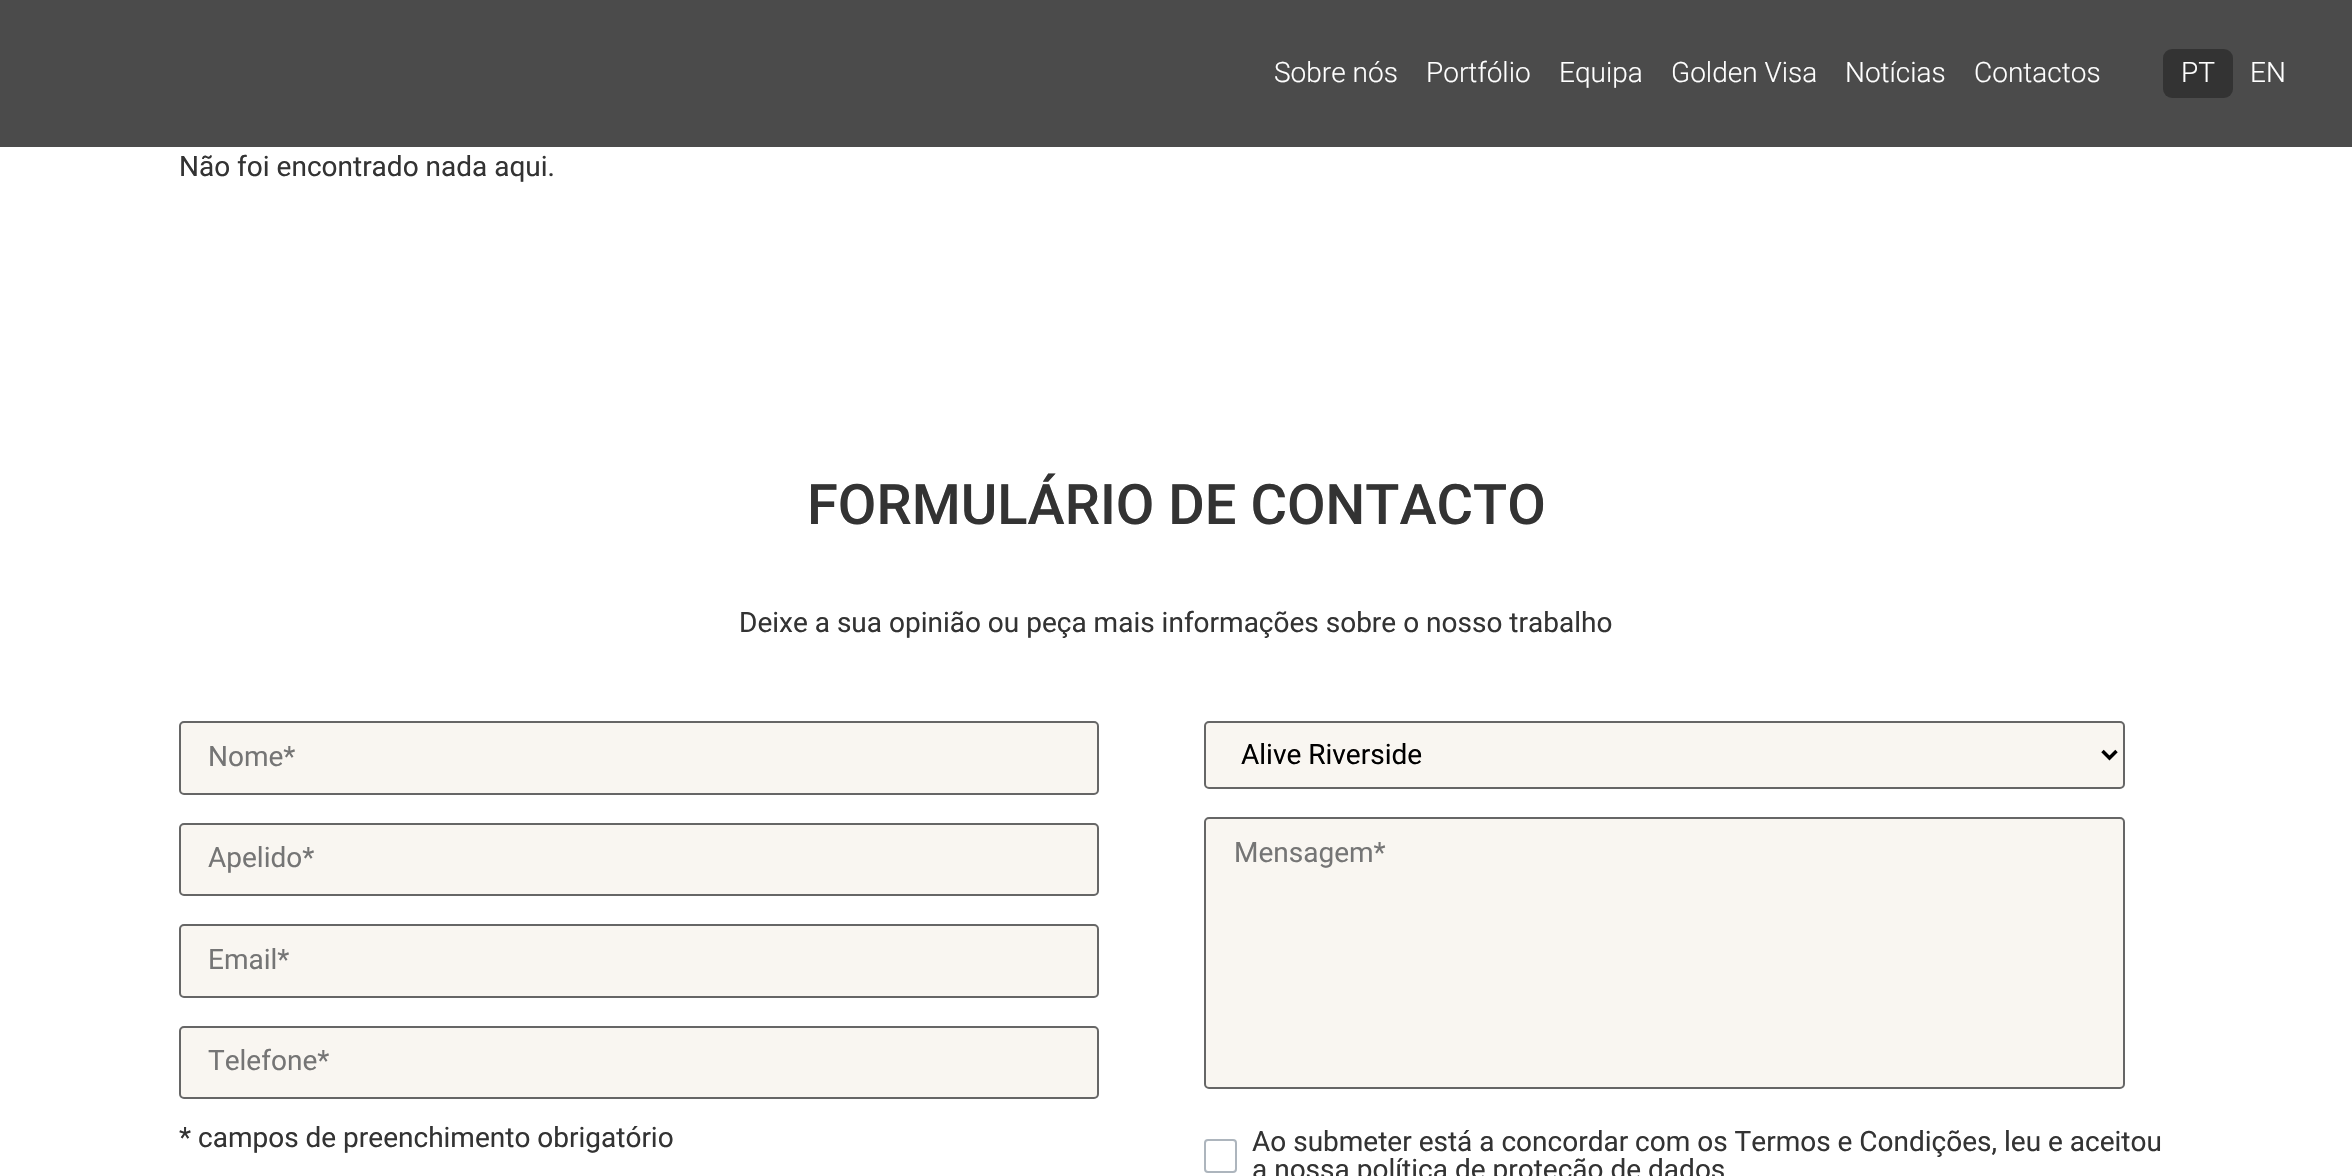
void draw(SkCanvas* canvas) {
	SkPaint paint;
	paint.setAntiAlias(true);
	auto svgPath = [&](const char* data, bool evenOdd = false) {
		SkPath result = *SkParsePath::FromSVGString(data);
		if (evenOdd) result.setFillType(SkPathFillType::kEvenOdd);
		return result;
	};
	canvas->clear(0xffffffff);
	paint.setColor(0xff4b4b4b);
	canvas->drawRect(SkRect::MakeXYWH(0, 0, 2352, 147), paint);
	SkFont f1(fontMgr->matchFamilyStyle("Roboto", SkFontStyle(300, SkFontStyle::kNormal_Width, SkFontStyle::kUpright_Slant)), 28);
	f1.setSubpixel(true);
	paint.setColor(0xffffffff);
	canvas->drawString("Sobre nós", 1274, 82, f1, paint);
	canvas->drawString("Portfólio", 1426, 82, f1, paint);
	canvas->drawString("Equipa", 1559, 82, f1, paint);
	canvas->drawString("Golden Visa", 1671, 82, f1, paint);
	canvas->drawString("Notícias", 1845, 82, f1, paint);
	canvas->drawString("Contactos", 1974, 82, f1, paint);
	paint.setColor(0xff333333);
	canvas->drawRoundRect(SkRect::MakeXYWH(2163, 49, 70, 49), 9, 9, paint);
	paint.setColor(0xffffffff);
	canvas->drawString("PT", 2181, 82, f1, paint);
	canvas->drawString("EN", 2250, 82, f1, paint);
	SkFont f2(fontMgr->matchFamilyStyle("Roboto", SkFontStyle::Normal()), 28);
	f2.setSubpixel(true);
	paint.setColor(0xff333333);
	canvas->drawString("Não foi encontrado nada aqui.", 179, 176, f2, paint);
	SkFont f3(fontMgr->matchFamilyStyle("Roboto", SkFontStyle(500, SkFontStyle::kNormal_Width, SkFontStyle::kUpright_Slant)), 56);
	f3.setSubpixel(true);
	canvas->drawString("FORMULÁRIO DE CONTACTO", 807, 524, f3, paint);
	canvas->drawString("Deixe a sua opinião ou peça mais informações sobre o nosso trabalho", 739, 632, f2, paint);
	paint.setColor(0xfff9f6f1);
	canvas->drawRoundRect(SkRect::MakeXYWH(180, 722, 918, 72), 4, 4, paint);
	paint.setStroke(true);
	paint.setStrokeWidth(2);
	paint.setColor(0xff666666);
	canvas->drawRoundRect(SkRect::MakeXYWH(180, 722, 918, 72), 4, 4, paint);
	paint.setStroke(false);
	paint.setColor(0xff757575);
	canvas->drawString("Nome*", 208, 766, f2, paint);
	paint.setColor(0xfff9f6f1);
	canvas->drawRoundRect(SkRect::MakeXYWH(180, 824, 918, 71), 4, 4, paint);
	paint.setStroke(true);
	paint.setColor(0xff666666);
	canvas->drawRoundRect(SkRect::MakeXYWH(180, 824, 918, 71), 4, 4, paint);
	paint.setStroke(false);
	paint.setColor(0xff757575);
	canvas->drawString("Apelido*", 208, 867, f2, paint);
	paint.setColor(0xfff9f6f1);
	canvas->drawRoundRect(SkRect::MakeXYWH(180, 925, 918, 72), 4, 4, paint);
	paint.setStroke(true);
	paint.setColor(0xff666666);
	canvas->drawRoundRect(SkRect::MakeXYWH(180, 925, 918, 72), 4, 4, paint);
	paint.setStroke(false);
	paint.setColor(0xff757575);
	canvas->drawString("Email*", 208, 969, f2, paint);
	paint.setColor(0xfff9f6f1);
	canvas->drawRoundRect(SkRect::MakeXYWH(180, 1027, 918, 71), 4, 4, paint);
	paint.setStroke(true);
	paint.setColor(0xff666666);
	canvas->drawRoundRect(SkRect::MakeXYWH(180, 1027, 918, 71), 4, 4, paint);
	paint.setStroke(false);
	paint.setColor(0xff757575);
	canvas->drawString("Telefone*", 208, 1070, f2, paint);
	paint.setColor(0xff333333);
	canvas->drawString("* campos de preenchimento obrigatório", 179, 1147, f2, paint);
	paint.setColor(0xfff9f6f1);
	canvas->drawRoundRect(SkRect::MakeXYWH(1205, 722, 919, 66), 4, 4, paint);
	paint.setStroke(true);
	paint.setColor(0xff666666);
	canvas->drawRoundRect(SkRect::MakeXYWH(1205, 722, 919, 66), 4, 4, paint);
	paint.setStrokeWidth(3.5);
	paint.setColor(0xff000000);
	canvas->drawPath(svgPath("M2102.5 751L2109.5 758L2116.5 751"), paint);
	paint.setStroke(false);
	canvas->drawString("Alive Riverside", 1241, 764, f2, paint);
	paint.setColor(0xfff9f6f1);
	canvas->drawRoundRect(SkRect::MakeXYWH(1205, 818, 919, 270), 4, 4, paint);
	paint.setStroke(true);
	paint.setStrokeWidth(2);
	paint.setColor(0xff666666);
	canvas->drawRoundRect(SkRect::MakeXYWH(1205, 818, 919, 270), 4, 4, paint);
	paint.setStroke(false);
	paint.setColor(0xff757575);
	canvas->drawString("Mensagem*", 1234, 862, f2, paint);
	paint.setStroke(true);
	paint.setColor(0xffadb5bd);
	canvas->drawRoundRect(SkRect::MakeXYWH(1205, 1140, 31, 32), 3, 3, paint);
	paint.setStroke(false);
	paint.setColor(0xff333333);
	canvas->drawString("Ao submeter está a concordar com os Termos e Condições, leu e aceitou", 1252, 1151, f2, paint);
	canvas->drawString("a nossa política de proteção de dados", 1252, 1179, f2, paint);
}
